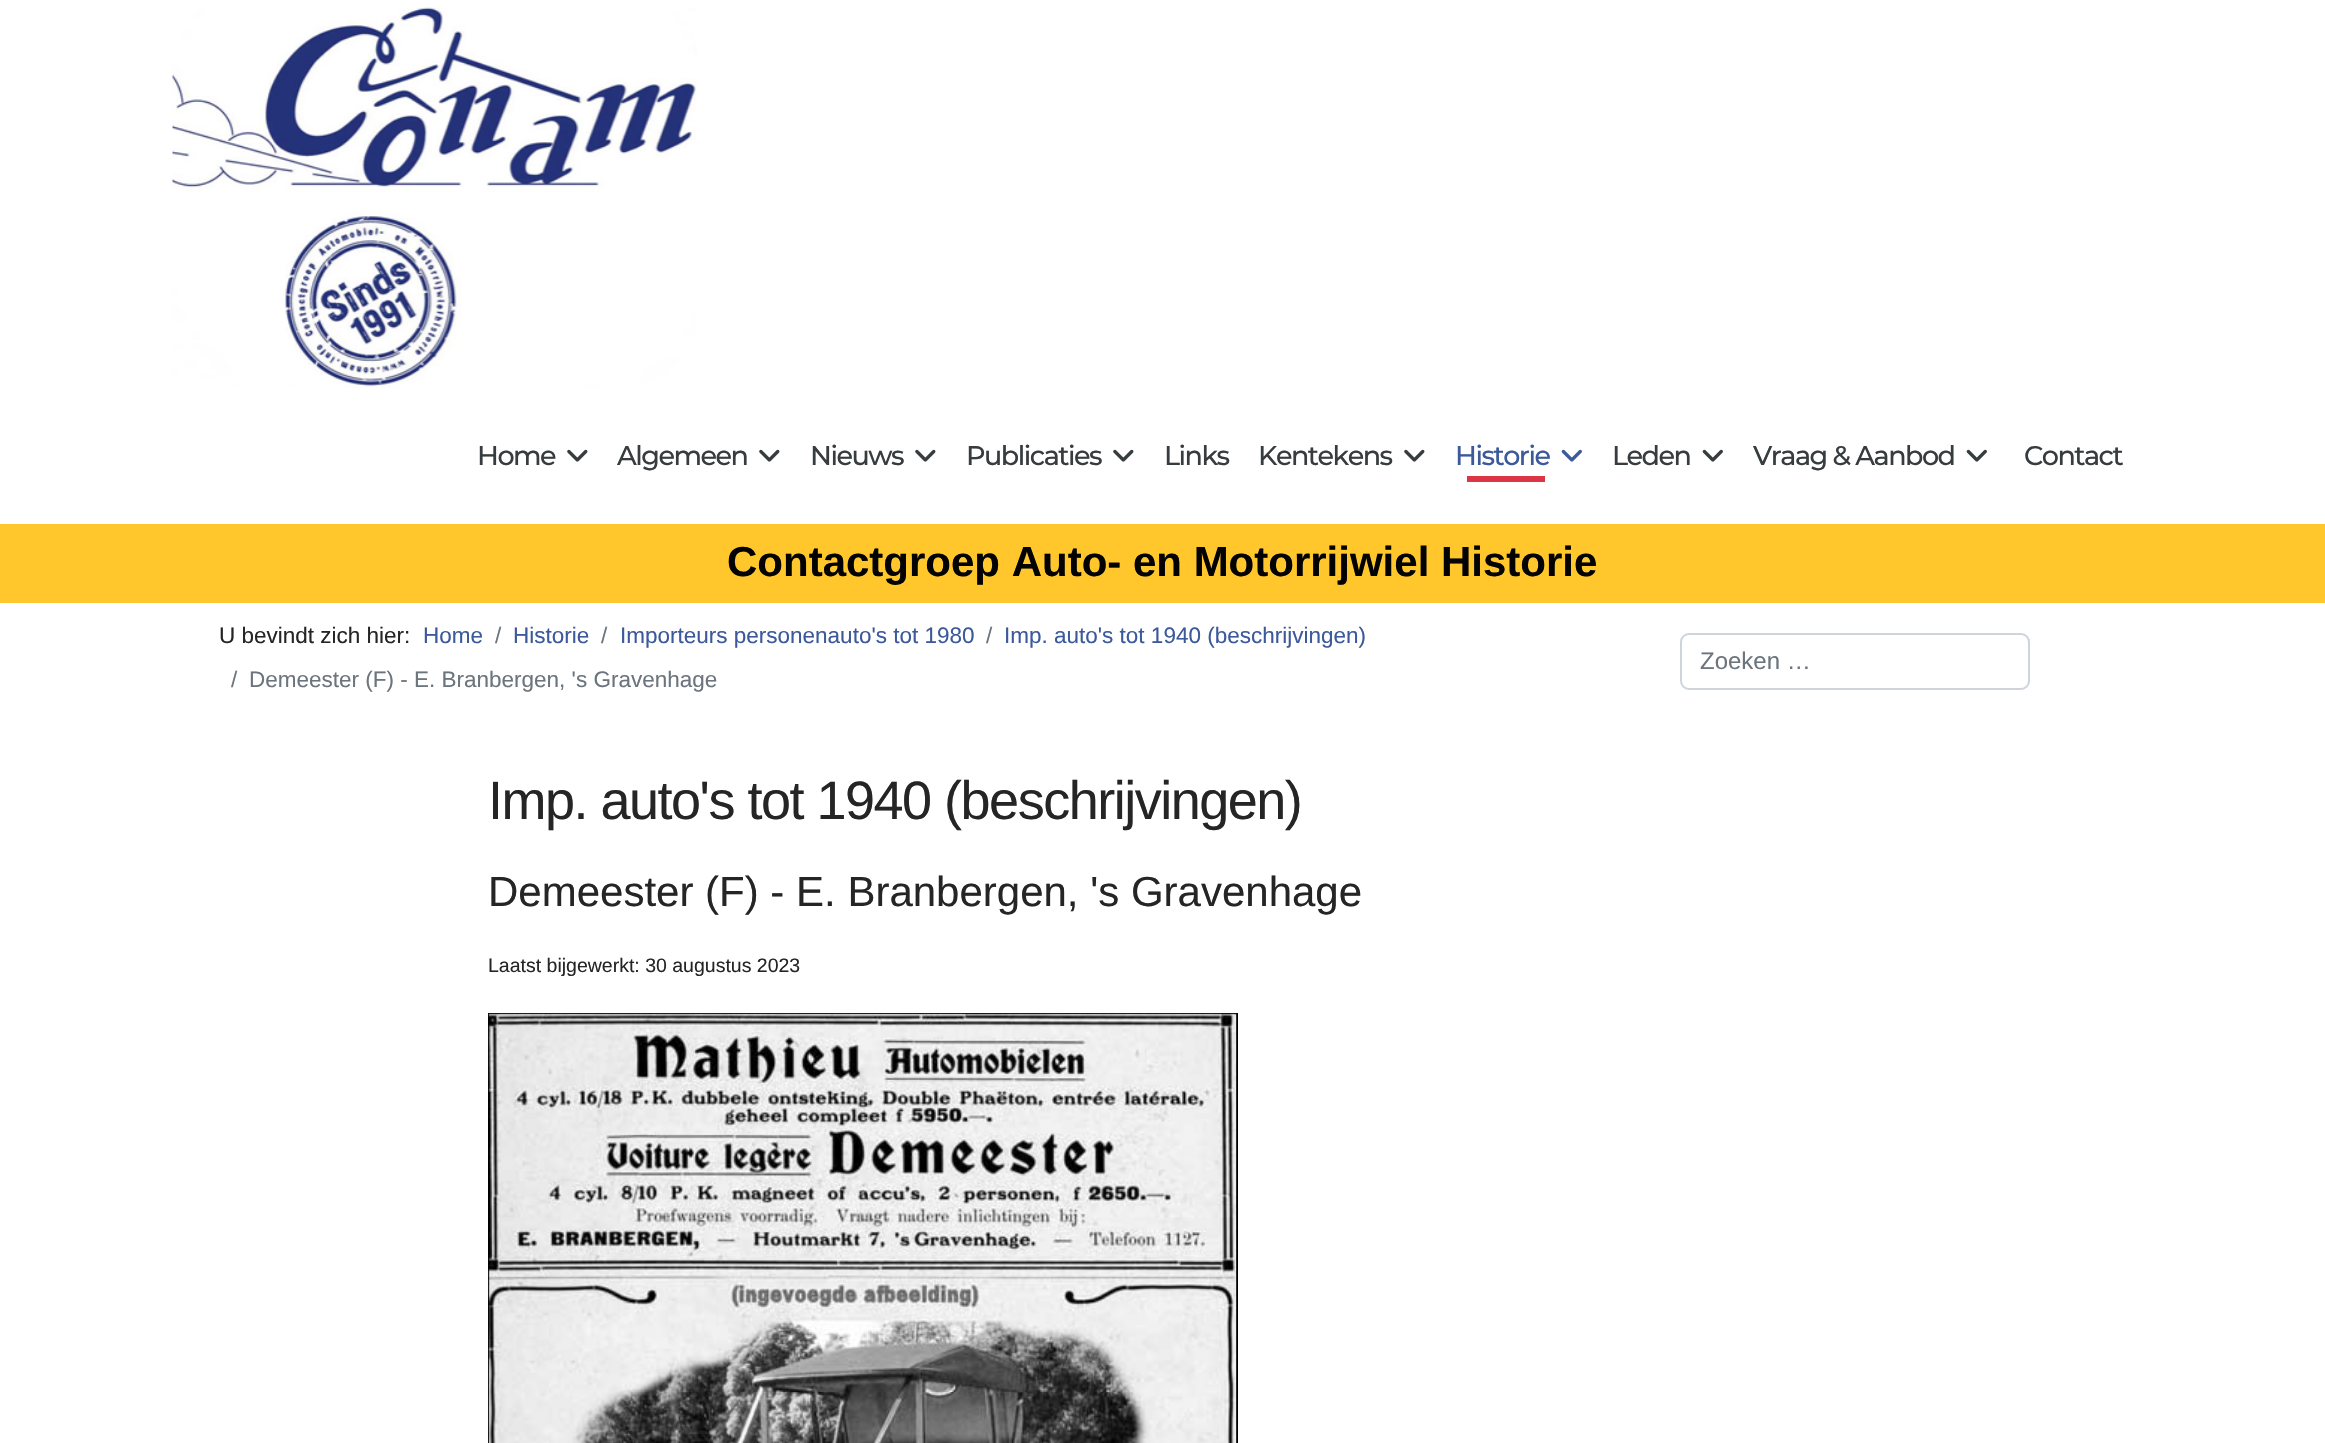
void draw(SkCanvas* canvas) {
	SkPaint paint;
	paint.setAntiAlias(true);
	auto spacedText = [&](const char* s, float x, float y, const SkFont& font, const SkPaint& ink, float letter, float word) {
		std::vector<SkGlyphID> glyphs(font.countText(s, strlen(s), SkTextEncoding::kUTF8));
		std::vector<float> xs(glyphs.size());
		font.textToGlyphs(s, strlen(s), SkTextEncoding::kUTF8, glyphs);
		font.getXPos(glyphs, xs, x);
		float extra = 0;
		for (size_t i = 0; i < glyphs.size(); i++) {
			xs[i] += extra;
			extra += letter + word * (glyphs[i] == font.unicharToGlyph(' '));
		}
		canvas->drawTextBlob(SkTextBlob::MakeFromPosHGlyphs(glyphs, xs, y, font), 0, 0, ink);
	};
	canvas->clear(0xffffffff);
	canvas->drawImageRect(SkImages::DeferredFromEncodedData(SkData::MakeFromFileName("img1.png")), SkRect::MakeXYWH(172, 7, 525, 381), SkSamplingOptions());
	SkFont f1(fontMgr->matchFamilyStyle("Montserrat", SkFontStyle(500, SkFontStyle::kNormal_Width, SkFontStyle::kUpright_Slant)), 27);
	f1.setSubpixel(true);
	paint.setColor(0xff373d3f);
	spacedText("Home", 477, 465, f1, paint, -1.5, 0);
	canvas->drawImageRect(SkImages::DeferredFromEncodedData(SkData::MakeFromFileName("img2.png")), SkRect::MakeXYWH(567, 449, 21, 13), SkSamplingOptions());
	spacedText("Algemeen", 617, 465, f1, paint, -1.5, 0);
	canvas->drawImageRect(SkImages::DeferredFromEncodedData(SkData::MakeFromFileName("img2.png")), SkRect::MakeXYWH(759, 449, 21, 13), SkSamplingOptions());
	spacedText("Nieuws", 810, 465, f1, paint, -1.5, 0);
	canvas->drawImageRect(SkImages::DeferredFromEncodedData(SkData::MakeFromFileName("img2.png")), SkRect::MakeXYWH(915, 449, 21, 13), SkSamplingOptions());
	spacedText("Publicaties", 966, 465, f1, paint, -1.5, 0);
	canvas->drawImageRect(SkImages::DeferredFromEncodedData(SkData::MakeFromFileName("img2.png")), SkRect::MakeXYWH(1113, 449, 21, 13), SkSamplingOptions());
	spacedText("Links", 1164, 465, f1, paint, -1.5, 0);
	spacedText("Kentekens", 1258, 465, f1, paint, -1.5, 0);
	canvas->drawImageRect(SkImages::DeferredFromEncodedData(SkData::MakeFromFileName("img2.png")), SkRect::MakeXYWH(1404, 449, 21, 13), SkSamplingOptions());
	paint.setColor(0xff3c599b);
	spacedText("Historie", 1455, 465, f1, paint, -1.5, 0);
	canvas->drawImageRect(SkImages::DeferredFromEncodedData(SkData::MakeFromFileName("img3.png")), SkRect::MakeXYWH(1561, 449, 21, 13), SkSamplingOptions());
	paint.setColor(0xffdc3545);
	canvas->drawRect(SkRect::MakeXYWH(1467, 476, 78, 6), paint);
	paint.setColor(0xff373d3f);
	spacedText("Leden", 1612, 465, f1, paint, -1.5, 0);
	canvas->drawImageRect(SkImages::DeferredFromEncodedData(SkData::MakeFromFileName("img4.png")), SkRect::MakeXYWH(1702, 449, 21, 13), SkSamplingOptions());
	spacedText("Vraag & Aanbod", 1753, 465, f1, paint, -1.5, 0);
	canvas->drawImageRect(SkImages::DeferredFromEncodedData(SkData::MakeFromFileName("img4.png")), SkRect::MakeXYWH(1966, 449, 21, 13), SkSamplingOptions());
	spacedText("Contact", 2024, 465, f1, paint, -1.5, 0);
	paint.setColor(0xffffc72c);
	canvas->drawRect(SkRect::MakeXYWH(0, 524, 2325, 79), paint);
	SkFont f2(fontMgr->matchFamilyStyle("Liberation Sans", SkFontStyle::Bold()), 42);
	f2.setSubpixel(true);
	paint.setColor(0xff030303);
	canvas->drawString("Contactgroep Auto- en Motorrijwiel Historie", 727, 576, f2, paint);
	SkFont f3(fontMgr->matchFamilyStyle("Liberation Sans", SkFontStyle::Normal()), 22.5);
	f3.setSubpixel(true);
	paint.setColor(0xff252525);
	canvas->drawString("U bevindt zich hier:", 219, 643, f3, paint);
	paint.setColor(0xff3c599b);
	canvas->drawString("Home", 423, 643, f3, paint);
	paint.setColor(0xff6c757d);
	canvas->drawString("/", 495, 643, f3, paint);
	paint.setColor(0xff3c599b);
	canvas->drawString("Historie", 513, 643, f3, paint);
	paint.setColor(0xff6c757d);
	canvas->drawString("/", 601, 643, f3, paint);
	paint.setColor(0xff3c599b);
	canvas->drawString("Importeurs personenauto's tot 1980", 620, 643, f3, paint);
	paint.setColor(0xff6c757d);
	canvas->drawString("/", 986, 643, f3, paint);
	paint.setColor(0xff3c599b);
	canvas->drawString("Imp. auto's tot 1940 (beschrijvingen)", 1004, 643, f3, paint);
	paint.setColor(0xff6c757d);
	canvas->drawString("/", 231, 687, f3, paint);
	canvas->drawString("Demeester (F) - E. Branbergen, 's Gravenhage", 249, 687, f3, paint);
	paint.setStroke(true);
	paint.setStrokeWidth(2);
	paint.setColor(0xffced4da);
	canvas->drawRoundRect(SkRect::MakeXYWH(1681, 634, 348, 55), 8, 8, paint);
	SkFont f4(fontMgr->matchFamilyStyle("Liberation Sans", SkFontStyle::Normal()), 24);
	f4.setSubpixel(true);
	paint.setStroke(false);
	paint.setColor(0xff6c757d);
	canvas->drawString("Zoeken …", 1700, 669, f4, paint);
	SkFont f5(fontMgr->matchFamilyStyle("Liberation Sans", SkFontStyle::Normal()), 54);
	f5.setSubpixel(true);
	paint.setColor(0xff252525);
	spacedText("Imp. auto's tot 1940 (beschrijvingen)", 488, 819, f5, paint, -1.5, 0);
	SkFont f6(fontMgr->matchFamilyStyle("Liberation Sans", SkFontStyle::Normal()), 42);
	f6.setSubpixel(true);
	canvas->drawString("Demeester (F) - E. Branbergen, 's Gravenhage", 488, 906, f6, paint);
	SkFont f7(fontMgr->matchFamilyStyle("Liberation Sans", SkFontStyle::Normal()), 19.5);
	f7.setSubpixel(true);
	canvas->drawString("Laatst bijgewerkt: 30 augustus 2023", 488, 972, f7, paint);
	paint.setStroke(true);
	paint.setColor(0xff000000);
	canvas->drawRect(SkRect::MakeXYWH(489, 1014, 748, 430), paint);
	canvas->drawImageRect(SkImages::DeferredFromEncodedData(SkData::MakeFromFileName("img5.png")), SkRect::MakeXYWH(488, 1013, 749, 430), SkSamplingOptions());
}
